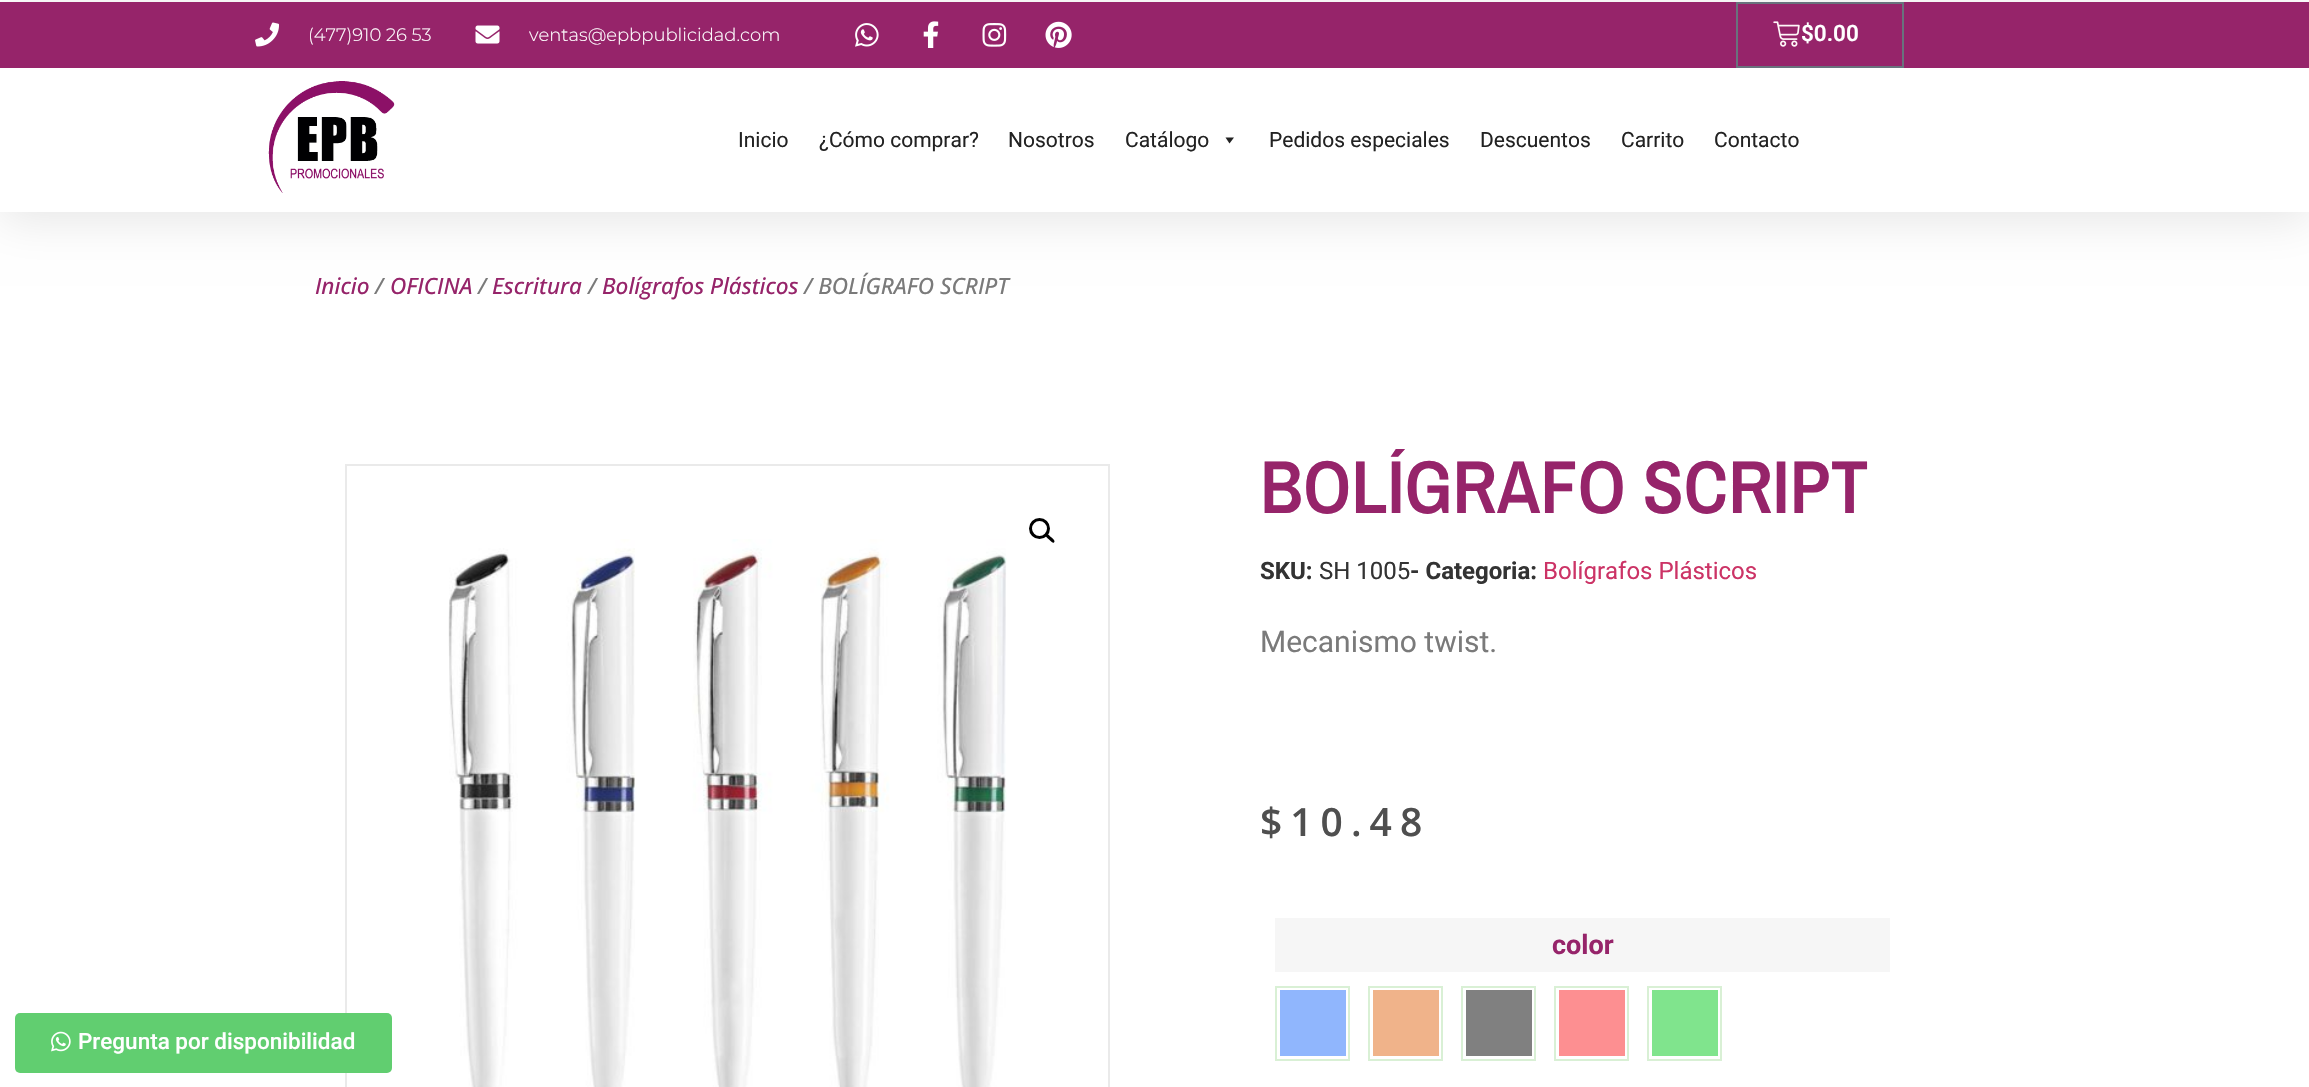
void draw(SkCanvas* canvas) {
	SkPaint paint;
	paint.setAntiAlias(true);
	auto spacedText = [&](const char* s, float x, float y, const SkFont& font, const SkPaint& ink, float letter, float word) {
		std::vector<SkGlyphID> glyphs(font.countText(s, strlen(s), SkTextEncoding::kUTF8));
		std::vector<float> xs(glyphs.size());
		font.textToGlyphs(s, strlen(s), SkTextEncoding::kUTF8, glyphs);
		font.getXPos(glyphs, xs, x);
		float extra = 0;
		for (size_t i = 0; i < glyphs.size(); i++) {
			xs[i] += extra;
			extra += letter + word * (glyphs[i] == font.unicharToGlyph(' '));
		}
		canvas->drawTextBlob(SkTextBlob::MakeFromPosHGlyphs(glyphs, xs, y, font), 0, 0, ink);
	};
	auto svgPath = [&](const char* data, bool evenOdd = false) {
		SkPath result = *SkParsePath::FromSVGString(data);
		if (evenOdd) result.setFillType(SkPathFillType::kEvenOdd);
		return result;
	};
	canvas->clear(0xffffffff);
	paint.setColor(0x1a000000);
	paint.setMaskFilter(SkMaskFilter::MakeBlur(kNormal_SkBlurStyle, 22.5));
	canvas->drawRect(SkRect::MakeXYWH(0, 9, 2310, 210), paint);
	paint.setMaskFilter(nullptr);
	paint.setColor(0xff96246a);
	canvas->drawRect(SkRect::MakeXYWH(0, 2, 2309, 66), paint);
	canvas->drawImageRect(SkImages::DeferredFromEncodedData(SkData::MakeFromFileName("img1.png")), SkRect::MakeXYWH(255, 22, 24, 25), SkSamplingOptions());
	SkFont f1(fontMgr->matchFamilyStyle("Montserrat", SkFontStyle(300, SkFontStyle::kNormal_Width, SkFontStyle::kUpright_Slant)), 18);
	f1.setSubpixel(true);
	paint.setColor(0xffffffff);
	canvas->drawString("(477)910 26 53", 308, 41, f1, paint);
	canvas->drawImageRect(SkImages::DeferredFromEncodedData(SkData::MakeFromFileName("img2.png")), SkRect::MakeXYWH(475, 25, 25, 19), SkSamplingOptions());
	canvas->drawString("ventas@epbpublicidad.com", 529, 41, f1, paint);
	canvas->drawImageRect(SkImages::DeferredFromEncodedData(SkData::MakeFromFileName("img3.png")), SkRect::MakeXYWH(855, 23, 24, 24), SkSamplingOptions());
	canvas->drawImageRect(SkImages::DeferredFromEncodedData(SkData::MakeFromFileName("img4.png")), SkRect::MakeXYWH(923, 21, 16, 27), SkSamplingOptions());
	canvas->drawImageRect(SkImages::DeferredFromEncodedData(SkData::MakeFromFileName("img5.png")), SkRect::MakeXYWH(982, 23, 25, 24), SkSamplingOptions());
	canvas->drawImageRect(SkImages::DeferredFromEncodedData(SkData::MakeFromFileName("img6.png")), SkRect::MakeXYWH(1045, 21, 27, 27), SkSamplingOptions());
	paint.setStroke(true);
	paint.setStrokeWidth(2);
	paint.setColor(0xff69727d);
	canvas->drawRect(SkRect::MakeXYWH(1737, 3, 166, 64), paint);
	canvas->drawImageRect(SkImages::DeferredFromEncodedData(SkData::MakeFromFileName("img7.png")), SkRect::MakeXYWH(1773, 21, 27, 26), SkSamplingOptions());
	SkFont f2(fontMgr->matchFamilyStyle("Roboto", SkFontStyle(600, SkFontStyle::kNormal_Width, SkFontStyle::kUpright_Slant)), 22.5);
	f2.setSubpixel(true);
	paint.setStroke(false);
	paint.setColor(0xffffffff);
	canvas->drawString("$0.00", 1801, 41, f2, paint);
	canvas->drawRect(SkRect::MakeXYWH(0, 68, 2309, 144), paint);
	canvas->drawImageRect(SkImages::DeferredFromEncodedData(SkData::MakeFromFileName("img8.png")), SkRect::MakeXYWH(268, 81, 127, 112), SkSamplingOptions());
	SkFont f3(fontMgr->matchFamilyStyle("Roboto", SkFontStyle::Normal()), 21);
	f3.setSubpixel(true);
	paint.setColor(0xff222222);
	canvas->drawString("Inicio", 738, 147, f3, paint);
	canvas->drawString("¿Cómo comprar?", 819, 147, f3, paint);
	canvas->drawString("Nosotros", 1008, 147, f3, paint);
	canvas->drawString("Catálogo", 1125, 147, f3, paint);
	canvas->drawPath(svgPath("M1234 137.5L1229.5 143.5L1225.5 137.5Z"), paint);
	canvas->drawString("Pedidos especiales", 1269, 147, f3, paint);
	canvas->drawString("Descuentos", 1480, 147, f3, paint);
	canvas->drawString("Carrito", 1621, 147, f3, paint);
	canvas->drawString("Contacto", 1714, 147, f3, paint);
	SkFont f4(fontMgr->matchFamilyStyle("Open Sans", SkFontStyle(500, SkFontStyle::kNormal_Width, SkFontStyle::kItalic_Slant)), 22.5);
	f4.setSubpixel(true);
	paint.setColor(0xff96246a);
	canvas->drawString("Inicio", 315, 294, f4, paint);
	paint.setColor(0xff7a7a7a);
	canvas->drawString("/", 375, 294, f4, paint);
	paint.setColor(0xff96246a);
	canvas->drawString("OFICINA", 390, 294, f4, paint);
	paint.setColor(0xff7a7a7a);
	canvas->drawString("/", 478, 294, f4, paint);
	paint.setColor(0xff96246a);
	canvas->drawString("Escritura", 492, 294, f4, paint);
	paint.setColor(0xff7a7a7a);
	canvas->drawString("/", 588, 294, f4, paint);
	paint.setColor(0xff96246a);
	canvas->drawString("Bolígrafos Plásticos", 602, 294, f4, paint);
	paint.setColor(0xff7a7a7a);
	canvas->drawString("/ BOLÍGRAFO SCRIPT", 804, 294, f4, paint);
	paint.setStroke(true);
	paint.setColor(0xffeaeaea);
	canvas->drawRect(SkRect::MakeXYWH(346, 465, 763, 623), paint);
	paint.setStrokeWidth(3);
	paint.setColor(0xff000000);
	canvas->drawCircle(1039.5, 528.5, 9, paint);
	paint.setStroke(false);
	canvas->drawPath(svgPath("M1046 534C1047.5 532.5 1050 536.5 1051 537C1052 538 1056 541 1054 542.5C1052.5 544 1050 540 1049 539.5C1048 538.5 1044 535.5 1046 534Z"), paint);
	canvas->drawImageRect(SkImages::DeferredFromEncodedData(SkData::MakeFromFileName("img9.png")), SkRect::MakeXYWH(448, 539, 559, 548), SkSamplingOptions());
	SkFont f5(fontMgr->matchFamilyStyle("Archivo Narrow", SkFontStyle(600, SkFontStyle::kNormal_Width, SkFontStyle::kUpright_Slant)), 75);
	f5.setSubpixel(true);
	paint.setColor(0xff96246a);
	canvas->drawString("BOLÍGRAFO SCRIPT", 1260, 513, f5, paint);
	SkFont f6(fontMgr->matchFamilyStyle("Roboto", SkFontStyle::Bold()), 24);
	f6.setSubpixel(true);
	paint.setColor(0xff333333);
	canvas->drawString("SKU:", 1260, 579, f6, paint);
	SkFont f7(fontMgr->matchFamilyStyle("Roboto", SkFontStyle::Normal()), 24);
	f7.setSubpixel(true);
	canvas->drawString("SH 1005", 1319, 579, f7, paint);
	canvas->drawString("- Categoria:", 1410, 579, f6, paint);
	paint.setColor(0xffcc3366);
	canvas->drawString("Bolígrafos Plásticos", 1543, 579, f7, paint);
	SkFont f8(fontMgr->matchFamilyStyle("Roboto", SkFontStyle::Normal()), 30);
	f8.setSubpixel(true);
	paint.setColor(0xff7a7a7a);
	canvas->drawString("Mecanismo twist.", 1260, 652, f8, paint);
	SkFont f9(fontMgr->matchFamilyStyle("Open Sans", SkFontStyle(600, SkFontStyle::kNormal_Width, SkFontStyle::kUpright_Slant)), 39);
	f9.setSubpixel(true);
	paint.setColor(0xff4f4f4f);
	spacedText("$10.48", 1260, 836, f9, paint, 8, 0);
	paint.setColor(0xfff6f6f6);
	canvas->drawRect(SkRect::MakeXYWH(1275, 918, 615, 54), paint);
	SkFont f10(fontMgr->matchFamilyStyle("Roboto", SkFontStyle::Bold()), 27);
	f10.setSubpixel(true);
	paint.setColor(0xff96246a);
	canvas->drawString("color", 1552, 954, f10, paint);
	paint.setStroke(true);
	paint.setStrokeWidth(2);
	paint.setColor(0xffd9f0d5);
	canvas->drawRect(SkRect::MakeXYWH(1276, 987, 73, 73), paint);
	paint.setStroke(false);
	paint.setColor(0xff90b6fd);
	canvas->drawRect(SkRect::MakeXYWH(1280, 990, 66, 66), paint);
	paint.setStroke(true);
	paint.setColor(0xffd9f0d5);
	canvas->drawRect(SkRect::MakeXYWH(1369, 987, 73, 73), paint);
	paint.setStroke(false);
	paint.setColor(0xfff0b38a);
	canvas->drawRect(SkRect::MakeXYWH(1373, 990, 66, 66), paint);
	paint.setStroke(true);
	paint.setColor(0xffd9f0d5);
	canvas->drawRect(SkRect::MakeXYWH(1462, 987, 73, 73), paint);
	paint.setStroke(false);
	paint.setColor(0xff808080);
	canvas->drawRect(SkRect::MakeXYWH(1466, 990, 66, 66), paint);
	paint.setStroke(true);
	paint.setColor(0xffd9f0d5);
	canvas->drawRect(SkRect::MakeXYWH(1555, 987, 73, 73), paint);
	paint.setStroke(false);
	paint.setColor(0xfffd8f91);
	canvas->drawRect(SkRect::MakeXYWH(1559, 990, 66, 66), paint);
	paint.setStroke(true);
	paint.setColor(0xffd9f0d5);
	canvas->drawRect(SkRect::MakeXYWH(1648, 987, 73, 73), paint);
	paint.setStroke(false);
	paint.setColor(0xff80e48d);
	canvas->drawRect(SkRect::MakeXYWH(1652, 990, 66, 66), paint);
	paint.setColor(0xff61ce70);
	canvas->drawRoundRect(SkRect::MakeXYWH(15, 1013, 377, 60), 5, 5, paint);
	canvas->drawImageRect(SkImages::DeferredFromEncodedData(SkData::MakeFromFileName("img10.png")), SkRect::MakeXYWH(51, 1031, 20, 21), SkSamplingOptions());
	SkFont f11(fontMgr->matchFamilyStyle("Roboto", SkFontStyle(500, SkFontStyle::kNormal_Width, SkFontStyle::kUpright_Slant)), 22.5);
	f11.setSubpixel(true);
	paint.setColor(0xffffffff);
	canvas->drawString("Pregunta por disponibilidad", 78, 1049, f11, paint);
}
